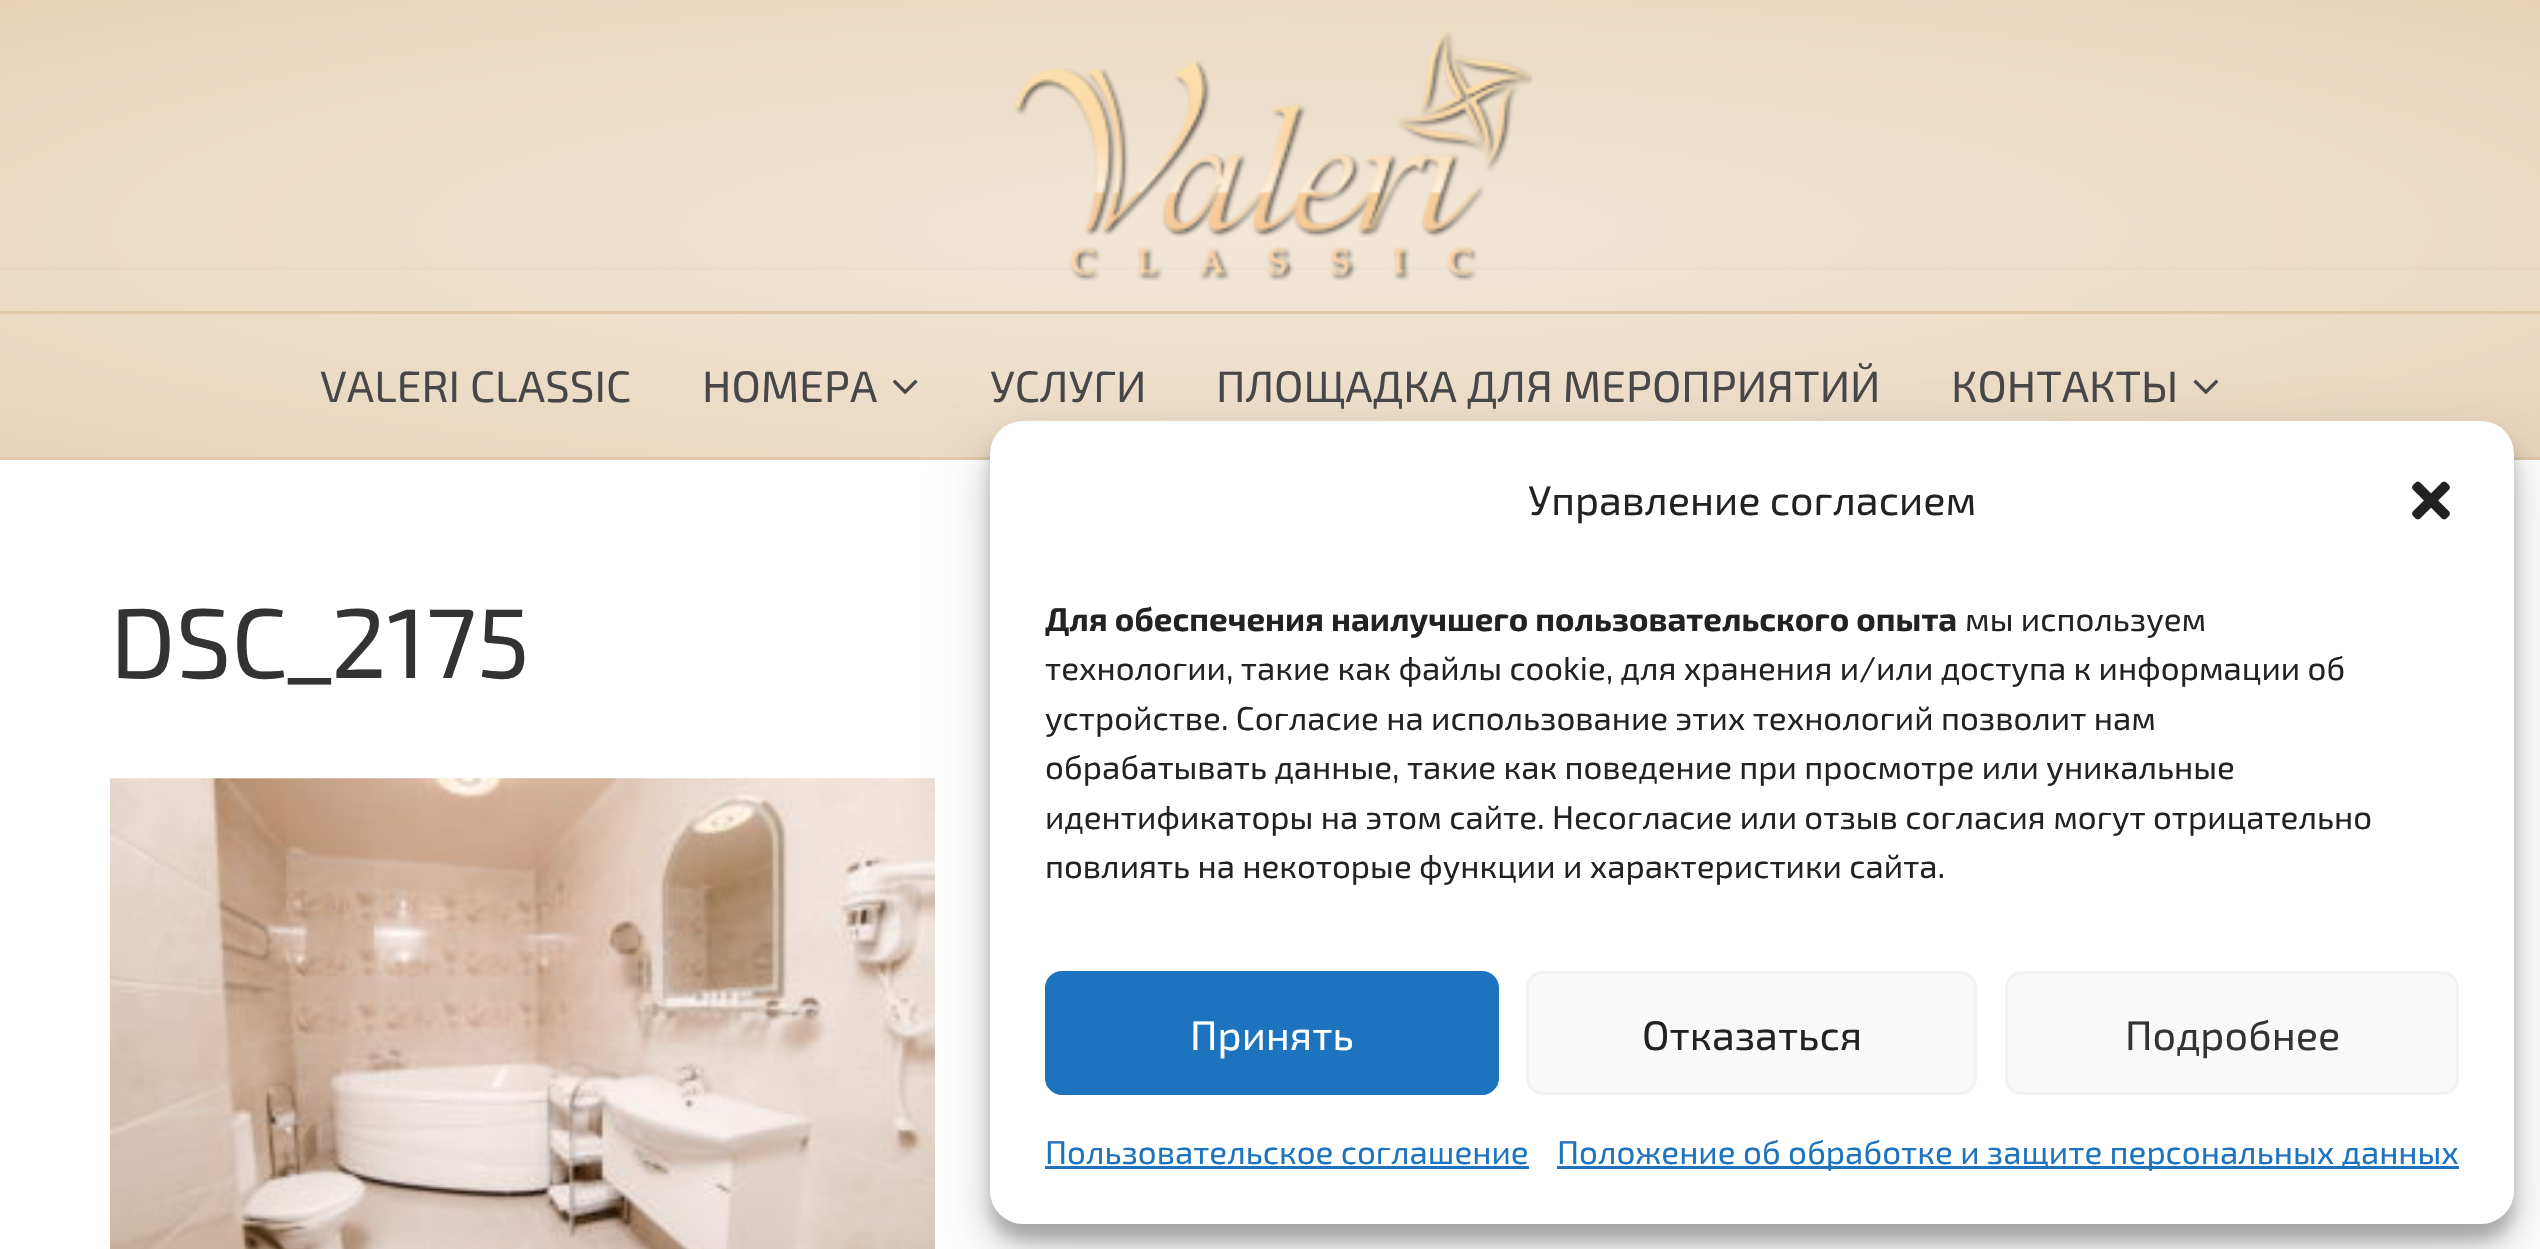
void draw(SkCanvas* canvas) {
	SkPaint paint;
	paint.setAntiAlias(true);
	canvas->clear(0xfffff9f9);
	paint.setColor(0xffffffff);
	canvas->drawRect(SkRect::MakeXYWH(0, 270, 2540, 187), paint);
	paint.setColor(0xffe6e6e6);
	canvas->drawRect(SkRect::MakeXYWH(0, 267, 2540, 3), paint);
	{
		const SkColor colors[] = {0xc9efe1cf, 0xc9e2c9a9};
		const float stops[] = {0, 1};
		SkMatrix m = SkMatrix::Translate(1271, 230).preScale(1797, 325);
		paint.setShader(SkGradientShader::MakeRadial({0, 0}, 1, colors, stops, 2, SkTileMode::kClamp, 0, &m));
		paint.setAlpha(255);
	}
	canvas->drawRect(SkRect::MakeXYWH(0, 0, 2540, 457), paint);
	canvas->drawImageRect(SkImages::DeferredFromEncodedData(SkData::MakeFromFileName("img1.png")), SkRect::MakeXYWH(1014, 31, 518, 250), SkSamplingOptions());
	paint.setShader(nullptr);
	paint.setColor(0xffe2c9a9);
	canvas->drawRect(SkRect::MakeXYWH(0, 311, 2540, 3), paint);
	canvas->drawRect(SkRect::MakeXYWH(0, 457, 2540, 3), paint);
	SkFont f1(fontMgr->matchFamilyStyle("Exo 2", SkFontStyle::Normal()), 44);
	f1.setSubpixel(true);
	paint.setColor(0xff474747);
	canvas->drawString("VALERI CLASSIC", 320, 402, f1, paint);
	canvas->drawString("НОМЕРА", 702, 402, f1, paint);
	canvas->drawImageRect(SkImages::DeferredFromEncodedData(SkData::MakeFromFileName("img2.png")), SkRect::MakeXYWH(893, 379, 25, 15), SkSamplingOptions());
	canvas->drawString("УСЛУГИ", 990, 402, f1, paint);
	canvas->drawString("ПЛОЩАДКА ДЛЯ МЕРОПРИЯТИЙ", 1216, 402, f1, paint);
	canvas->drawString("КОНТАКТЫ", 1951, 402, f1, paint);
	canvas->drawImageRect(SkImages::DeferredFromEncodedData(SkData::MakeFromFileName("img3.png")), SkRect::MakeXYWH(2193, 379, 26, 15), SkSamplingOptions());
	paint.setColor(0xffffffff);
	canvas->drawRect(SkRect::MakeXYWH(0, 460, 2540, 789), paint);
	SkFont f2(fontMgr->matchFamilyStyle("Exo 2", SkFontStyle::Normal()), 99);
	f2.setSubpixel(true);
	paint.setColor(0xff333333);
	canvas->drawString("DSC_2175", 110, 678, f2, paint);
	canvas->drawImageRect(SkImages::DeferredFromEncodedData(SkData::MakeFromFileName("img4.png")), SkRect::MakeXYWH(110, 778, 825, 471), SkSamplingOptions());
	paint.setColor(0x3b000000);
	paint.setMaskFilter(SkMaskFilter::MakeBlur(kNormal_SkBlurStyle, 8));
	canvas->drawRoundRect(SkRect::MakeXYWH(990, 437, 1524, 803), 33, 33, paint);
	paint.setMaskFilter(nullptr);
	paint.setColor(0x30000000);
	paint.setMaskFilter(SkMaskFilter::MakeBlur(kNormal_SkBlurStyle, 27.5));
	canvas->drawRoundRect(SkRect::MakeXYWH(990, 448, 1524, 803), 33, 33, paint);
	paint.setMaskFilter(nullptr);
	paint.setColor(0xffffffff);
	canvas->drawRoundRect(SkRect::MakeXYWH(990, 421, 1524, 803), 33, 33, paint);
	SkFont f3(fontMgr->matchFamilyStyle("Exo 2", SkFontStyle::Normal()), 41.25);
	f3.setSubpixel(true);
	paint.setColor(0xff222222);
	canvas->drawString("Управление согласием", 1528, 515, f3, paint);
	canvas->drawImageRect(SkImages::DeferredFromEncodedData(SkData::MakeFromFileName("img5.png")), SkRect::MakeXYWH(2412, 481, 38, 39), SkSamplingOptions());
	SkFont f4(fontMgr->matchFamilyStyle("Exo 2", SkFontStyle::Bold()), 33);
	f4.setSubpixel(true);
	canvas->drawString("Для обеспечения наилучшего пользовательского опыта", 1045, 631, f4, paint);
	SkFont f5(fontMgr->matchFamilyStyle("Exo 2", SkFontStyle::Normal()), 33);
	f5.setSubpixel(true);
	canvas->drawString("мы используем", 1965, 631, f5, paint);
	canvas->drawString("технологии, такие как файлы cookie, для хранения и/или доступа к информации об", 1045, 680, f5, paint);
	canvas->drawString("устройстве. Согласие на использование этих технологий позволит нам", 1045, 730, f5, paint);
	canvas->drawString("обрабатывать данные, такие как поведение при просмотре или уникальные", 1045, 779, f5, paint);
	canvas->drawString("идентификаторы на этом сайте. Несогласие или отзыв согласия могут отрицательно", 1045, 829, f5, paint);
	canvas->drawString("повлиять на некоторые функции и характеристики сайта.", 1045, 878, f5, paint);
	paint.setColor(0xff1e73be);
	canvas->drawRoundRect(SkRect::MakeXYWH(1046.5, 972.5, 451, 121), 15.5, 15.5, paint);
	paint.setStroke(true);
	paint.setStrokeWidth(3);
	canvas->drawRoundRect(SkRect::MakeXYWH(1046.5, 972.5, 451, 121), 15.5, 15.5, paint);
	paint.setStroke(false);
	paint.setColor(0xffffffff);
	canvas->drawString("Принять", 1190, 1050, f3, paint);
	paint.setColor(0xfff9f9f9);
	canvas->drawRoundRect(SkRect::MakeXYWH(1527.5, 972.5, 448, 121), 15.5, 15.5, paint);
	paint.setStroke(true);
	paint.setColor(0xfff2f2f2);
	canvas->drawRoundRect(SkRect::MakeXYWH(1527.5, 972.5, 448, 121), 15.5, 15.5, paint);
	paint.setStroke(false);
	paint.setColor(0xff222222);
	canvas->drawString("Отказаться", 1642, 1050, f3, paint);
	paint.setColor(0xfff9f9f9);
	canvas->drawRoundRect(SkRect::MakeXYWH(2006.5, 972.5, 451, 121), 15.5, 15.5, paint);
	paint.setStroke(true);
	paint.setColor(0xfff2f2f2);
	canvas->drawRoundRect(SkRect::MakeXYWH(2006.5, 972.5, 451, 121), 15.5, 15.5, paint);
	paint.setStroke(false);
	paint.setColor(0xff333333);
	canvas->drawString("Подробнее", 2125, 1050, f3, paint);
	paint.setColor(0xff1e73be);
	canvas->drawString("Пользовательское соглашение", 1045, 1164, f5, paint);
	canvas->drawRect(SkRect::MakeXYWH(1045, 1166, 484, 3), paint);
	canvas->drawRect(SkRect::MakeXYWH(1557, 1166, 902, 3), paint);
	canvas->drawString("Положение об обработке и защите персональных данных", 1557, 1164, f5, paint);
}
